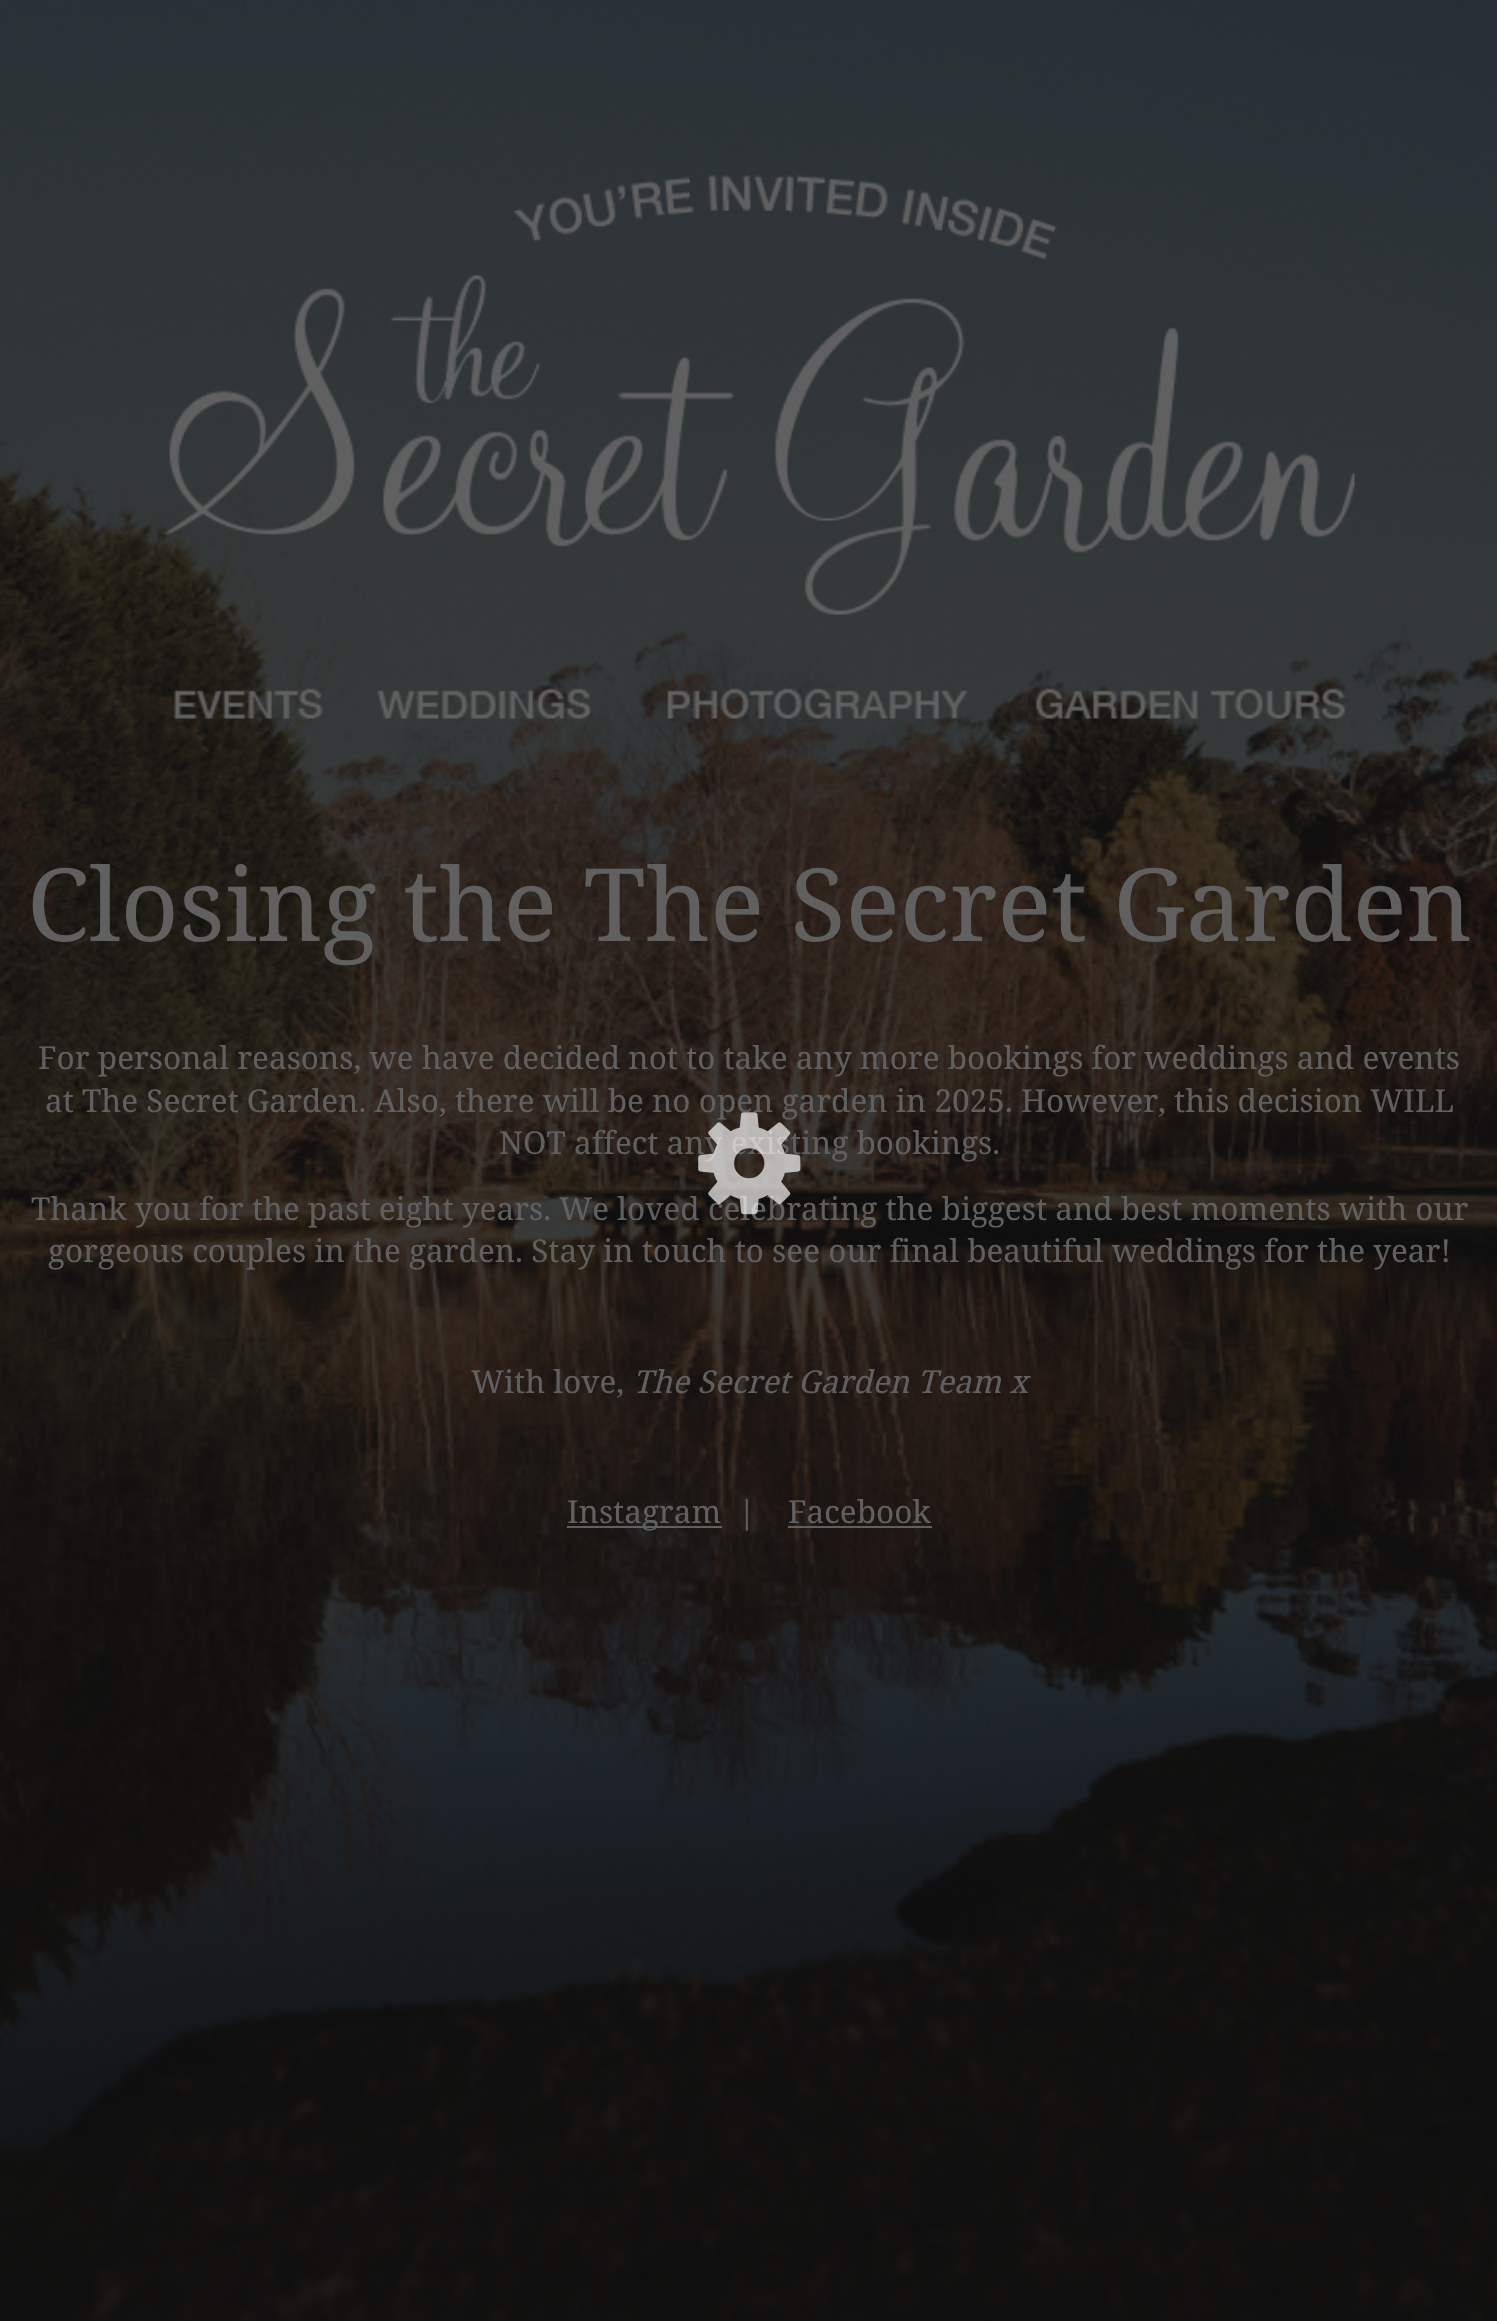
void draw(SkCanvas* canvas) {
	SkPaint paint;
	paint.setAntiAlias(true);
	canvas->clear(0xffffffff);
	canvas->drawImageRect(SkImages::DeferredFromEncodedData(SkData::MakeFromFileName("img1.png")), SkRect::MakeXYWH(0, 0, 1497, 2321), SkSamplingOptions());
	canvas->drawImageRect(SkImages::DeferredFromEncodedData(SkData::MakeFromFileName("img2.png")), SkRect::MakeXYWH(165, 174, 1190, 545), SkSamplingOptions());
	SkFont f1(fontMgr->matchFamilyStyle("Noto Serif", SkFontStyle::Normal()), 101.25);
	f1.setSubpixel(true);
	paint.setColor(0xff606060);
	canvas->drawString("Closing the The Secret Garden", 27, 941, f1, paint);
	SkFont f2(fontMgr->matchFamilyStyle("Noto Serif", SkFontStyle::Normal()), 31.5);
	f2.setSubpixel(true);
	canvas->drawString("For personal reasons, we have decided not to take any more bookings for weddings and events", 38, 1069, f2, paint);
	canvas->drawString("at The Secret Garden. Also, there will be no open garden in 2025. However, this decision WILL", 45, 1112, f2, paint);
	canvas->drawString("NOT affect any existing bookings.", 499, 1154, f2, paint);
	canvas->drawString("Thank you for the past eight years. We loved celebrating the biggest and best moments with our", 31, 1220, f2, paint);
	canvas->drawString("gorgeous couples in the garden. Stay in touch to see our final beautiful weddings for the year!", 48, 1262, f2, paint);
	canvas->drawString("With love,", 471, 1393, f2, paint);
	SkFont f3(fontMgr->matchFamilyStyle("Noto Serif", SkFontStyle::Italic()), 31.5);
	f3.setSubpixel(true);
	canvas->drawString("The Secret Garden Team x", 633, 1393, f3, paint);
	canvas->drawRect(SkRect::MakeXYWH(567, 1526, 155, 2), paint);
	canvas->drawString("Instagram", 567, 1523, f2, paint);
	canvas->drawString("|", 738, 1523, f2, paint);
	canvas->drawString("Facebook", 788, 1523, f2, paint);
	canvas->drawRect(SkRect::MakeXYWH(788, 1526, 144, 2), paint);
	canvas->drawImageRect(SkImages::DeferredFromEncodedData(SkData::MakeFromFileName("img3.png")), SkRect::MakeXYWH(698, 1112, 103, 103), SkSamplingOptions());
}
